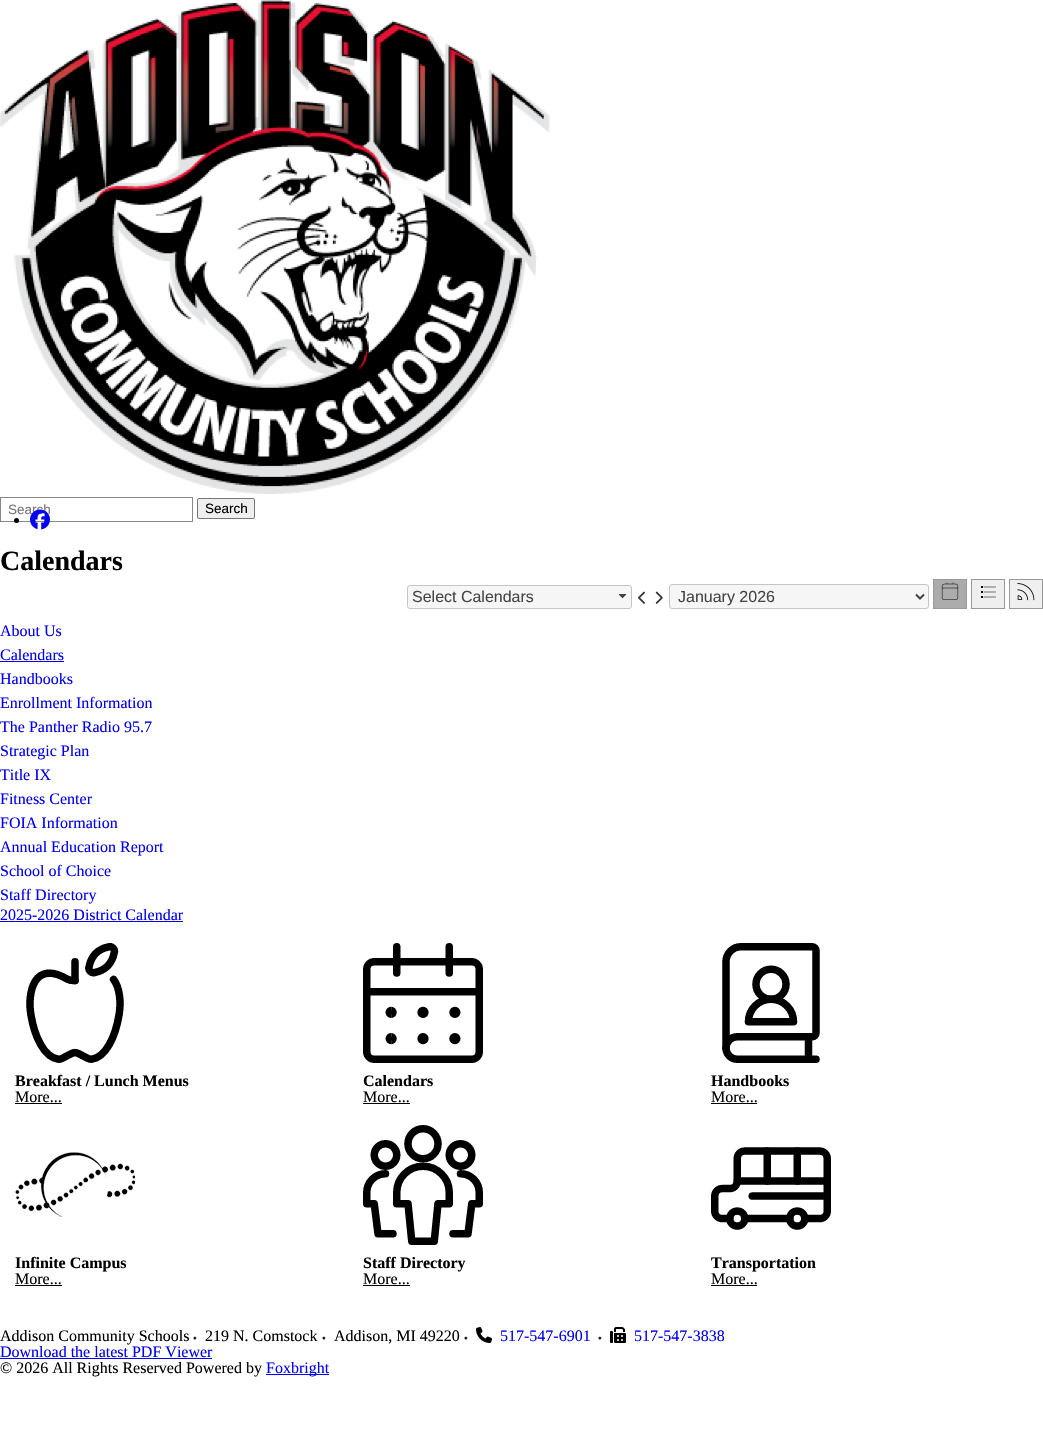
void draw(SkCanvas* canvas) {
	SkPaint paint;
	paint.setAntiAlias(true);
	auto svgPath = [&](const char* data, bool evenOdd = false) {
		SkPath result = *SkParsePath::FromSVGString(data);
		if (evenOdd) result.setFillType(SkPathFillType::kEvenOdd);
		return result;
	};
	canvas->clear(0xffffffff);
	canvas->drawImageRect(SkImages::DeferredFromEncodedData(SkData::MakeFromFileName("img1.png")), SkRect::MakeXYWH(0, 0, 550, 494), SkSamplingOptions());
	paint.setStroke(true);
	paint.setStrokeWidth(1);
	paint.setColor(0xff888888);
	canvas->drawRect(SkRect::MakeXYWH(0.5, 497.5, 192, 24), paint);
	SkFont f1(fontMgr->matchFamilyStyle("Liberation Sans", SkFontStyle::Normal()), 13.5);
	f1.setSubpixel(true);
	paint.setStroke(false);
	paint.setColor(0xff757575);
	canvas->drawString("Search", 8, 514, f1, paint);
	paint.setColor(0xffefefef);
	canvas->drawRoundRect(SkRect::MakeXYWH(197.5, 498.5, 57, 20), 1.5, 1.5, paint);
	paint.setStroke(true);
	paint.setColor(0xff767676);
	canvas->drawRoundRect(SkRect::MakeXYWH(197.5, 498.5, 57, 20), 1.5, 1.5, paint);
	paint.setStroke(false);
	paint.setColor(0xff000000);
	canvas->drawString("Search", 205, 513, f1, paint);
	canvas->drawCircle(16.5, 520.5, 2.5, paint);
	canvas->drawImageRect(SkImages::DeferredFromEncodedData(SkData::MakeFromFileName("img2.png")), SkRect::MakeXYWH(30, 509, 20, 21), SkSamplingOptions());
	SkFont f2(fontMgr->matchFamilyStyle("Liberation Serif", SkFontStyle::Bold()), 28);
	f2.setSubpixel(true);
	canvas->drawString("Calendars", 0, 570, f2, paint);
	paint.setColor(0xfff6f6f6);
	canvas->drawRoundRect(SkRect::MakeXYWH(407.5, 585.5, 224, 23), 2.5, 2.5, paint);
	paint.setStroke(true);
	paint.setColor(0xffc5c5c5);
	canvas->drawRoundRect(SkRect::MakeXYWH(407.5, 585.5, 224, 23), 2.5, 2.5, paint);
	SkFont f3(fontMgr->matchFamilyStyle("Liberation Sans", SkFontStyle::Normal()), 16);
	f3.setSubpixel(true);
	paint.setStroke(false);
	paint.setColor(0xff454545);
	canvas->drawString("Select Calendars", 412, 602, f3, paint);
	canvas->drawImageRect(SkImages::DeferredFromEncodedData(SkData::MakeFromFileName("img3.png")), SkRect::MakeXYWH(619, 594, 7, 4), SkSamplingOptions());
	canvas->drawImageRect(SkImages::DeferredFromEncodedData(SkData::MakeFromFileName("img4.png")), SkRect::MakeXYWH(638, 591, 7, 13), SkSamplingOptions());
	canvas->drawImageRect(SkImages::DeferredFromEncodedData(SkData::MakeFromFileName("img5.png")), SkRect::MakeXYWH(655, 591, 8, 13), SkSamplingOptions());
	paint.setColor(0xfff6f6f6);
	canvas->drawRoundRect(SkRect::MakeXYWH(669.5, 584.5, 259, 24), 2.5, 2.5, paint);
	paint.setStroke(true);
	paint.setColor(0xffc5c5c5);
	canvas->drawRoundRect(SkRect::MakeXYWH(669.5, 584.5, 259, 24), 2.5, 2.5, paint);
	paint.setStrokeWidth(2);
	paint.setColor(0xff454545);
	canvas->drawPath(svgPath("M916 594.5L920 598.5L924 594.5"), paint);
	paint.setStroke(false);
	canvas->drawString("January 2026", 678, 602, f3, paint);
	paint.setColor(0xffacacac);
	canvas->drawRect(SkRect::MakeXYWH(933.5, 579.5, 33, 29), paint);
	paint.setStroke(true);
	paint.setStrokeWidth(1);
	paint.setColor(0xff999999);
	canvas->drawRect(SkRect::MakeXYWH(933.5, 579.5, 33, 29), paint);
	canvas->drawImageRect(SkImages::DeferredFromEncodedData(SkData::MakeFromFileName("img6.png")), SkRect::MakeXYWH(941, 582, 18, 18), SkSamplingOptions());
	paint.setStroke(false);
	paint.setColor(0xffefefef);
	canvas->drawRect(SkRect::MakeXYWH(971.5, 579.5, 33, 29), paint);
	paint.setStroke(true);
	paint.setColor(0xff999999);
	canvas->drawRect(SkRect::MakeXYWH(971.5, 579.5, 33, 29), paint);
	canvas->drawImageRect(SkImages::DeferredFromEncodedData(SkData::MakeFromFileName("img7.png")), SkRect::MakeXYWH(981, 586, 15, 12), SkSamplingOptions());
	paint.setStroke(false);
	paint.setColor(0xffefefef);
	canvas->drawRect(SkRect::MakeXYWH(1009.5, 579.5, 33, 29), paint);
	paint.setStroke(true);
	paint.setColor(0xff999999);
	canvas->drawRect(SkRect::MakeXYWH(1009.5, 579.5, 33, 29), paint);
	canvas->drawImageRect(SkImages::DeferredFromEncodedData(SkData::MakeFromFileName("img8.png")), SkRect::MakeXYWH(1017, 583, 18, 18), SkSamplingOptions());
	SkFont f4(fontMgr->matchFamilyStyle("Liberation Serif", SkFontStyle::Normal()), 16);
	f4.setSubpixel(true);
	paint.setStroke(false);
	paint.setColor(0xff0000ee);
	canvas->drawString("About Us", 0, 636, f4, paint);
	canvas->drawString("Calendars", 0, 660, f4, paint);
	canvas->drawRect(SkRect::MakeXYWH(0, 661, 64, 1), paint);
	canvas->drawString("Handbooks", 0, 684, f4, paint);
	canvas->drawString("Enrollment Information", 0, 708, f4, paint);
	canvas->drawString("The Panther Radio 95.7", 0, 732, f4, paint);
	canvas->drawString("Strategic Plan", 0, 756, f4, paint);
	canvas->drawString("Title IX", 0, 780, f4, paint);
	canvas->drawString("Fitness Center", 0, 804, f4, paint);
	canvas->drawString("FOIA Information", 0, 828, f4, paint);
	canvas->drawString("Annual Education Report", 0, 852, f4, paint);
	canvas->drawString("School of Choice", 0, 876, f4, paint);
	canvas->drawString("Staff Directory", 0, 900, f4, paint);
	canvas->drawString("2025-2026 District Calendar", 0, 920, f4, paint);
	canvas->drawRect(SkRect::MakeXYWH(0, 921, 183, 1), paint);
	canvas->drawImageRect(SkImages::DeferredFromEncodedData(SkData::MakeFromFileName("img9.png")), SkRect::MakeXYWH(26, 943, 98, 120), SkSamplingOptions());
	SkFont f5(fontMgr->matchFamilyStyle("Liberation Serif", SkFontStyle::Bold()), 16);
	f5.setSubpixel(true);
	paint.setColor(0xff000000);
	canvas->drawString("Breakfast / Lunch Menus", 15, 1086, f5, paint);
	canvas->drawString("More...", 15, 1102, f4, paint);
	canvas->drawRect(SkRect::MakeXYWH(15, 1103, 47, 1), paint);
	canvas->drawImageRect(SkImages::DeferredFromEncodedData(SkData::MakeFromFileName("img10.png")), SkRect::MakeXYWH(363, 943, 120, 120), SkSamplingOptions());
	canvas->drawString("Calendars", 363, 1086, f5, paint);
	canvas->drawString("More...", 363, 1102, f4, paint);
	canvas->drawRect(SkRect::MakeXYWH(363, 1103, 47, 1), paint);
	canvas->drawImageRect(SkImages::DeferredFromEncodedData(SkData::MakeFromFileName("img11.png")), SkRect::MakeXYWH(722, 943, 98, 120), SkSamplingOptions());
	canvas->drawString("Handbooks", 711, 1086, f5, paint);
	canvas->drawString("More...", 711, 1102, f4, paint);
	canvas->drawRect(SkRect::MakeXYWH(711, 1103, 46, 1), paint);
	canvas->drawImageRect(SkImages::DeferredFromEncodedData(SkData::MakeFromFileName("img12.png")), SkRect::MakeXYWH(15, 1152, 120, 65), SkSamplingOptions());
	canvas->drawString("Infinite Campus", 15, 1268, f5, paint);
	canvas->drawString("More...", 15, 1284, f4, paint);
	canvas->drawRect(SkRect::MakeXYWH(15, 1285, 47, 1), paint);
	canvas->drawImageRect(SkImages::DeferredFromEncodedData(SkData::MakeFromFileName("img13.png")), SkRect::MakeXYWH(363, 1125, 120, 120), SkSamplingOptions());
	canvas->drawString("Staff Directory", 363, 1268, f5, paint);
	canvas->drawString("More...", 363, 1284, f4, paint);
	canvas->drawRect(SkRect::MakeXYWH(363, 1285, 47, 1), paint);
	canvas->drawImageRect(SkImages::DeferredFromEncodedData(SkData::MakeFromFileName("img14.png")), SkRect::MakeXYWH(711, 1147, 120, 83), SkSamplingOptions());
	canvas->drawString("Transportation", 711, 1268, f5, paint);
	canvas->drawString("More...", 711, 1284, f4, paint);
	canvas->drawRect(SkRect::MakeXYWH(711, 1285, 46, 1), paint);
	canvas->drawString("Addison Community Schools", 0, 1341, f4, paint);
	canvas->drawImageRect(SkImages::DeferredFromEncodedData(SkData::MakeFromFileName("img15.png")), SkRect::MakeXYWH(193, 1336, 4, 4), SkSamplingOptions());
	canvas->drawString("219 N. Comstock", 205, 1341, f4, paint);
	canvas->drawImageRect(SkImages::DeferredFromEncodedData(SkData::MakeFromFileName("img15.png")), SkRect::MakeXYWH(322, 1336, 4, 4), SkSamplingOptions());
	canvas->drawString("Addison, MI 49220", 334, 1341, f4, paint);
	canvas->drawImageRect(SkImages::DeferredFromEncodedData(SkData::MakeFromFileName("img15.png")), SkRect::MakeXYWH(464, 1336, 4, 4), SkSamplingOptions());
	canvas->drawImageRect(SkImages::DeferredFromEncodedData(SkData::MakeFromFileName("img16.png")), SkRect::MakeXYWH(476, 1327, 16, 16), SkSamplingOptions());
	paint.setColor(0xff0000ee);
	canvas->drawString("517-547-6901", 500, 1341, f4, paint);
	canvas->drawImageRect(SkImages::DeferredFromEncodedData(SkData::MakeFromFileName("img15.png")), SkRect::MakeXYWH(598, 1336, 4, 4), SkSamplingOptions());
	canvas->drawImageRect(SkImages::DeferredFromEncodedData(SkData::MakeFromFileName("img17.png")), SkRect::MakeXYWH(610, 1327, 16, 16), SkSamplingOptions());
	canvas->drawString("517-547-3838", 634, 1341, f4, paint);
	canvas->drawString("Download the latest PDF Viewer", 0, 1357, f4, paint);
	canvas->drawRect(SkRect::MakeXYWH(0, 1358, 212, 1), paint);
	paint.setColor(0xff000000);
	canvas->drawString("© 2026 All Rights Reserved Powered by", 0, 1373, f4, paint);
	paint.setColor(0xff0000ee);
	canvas->drawRect(SkRect::MakeXYWH(266, 1374, 63, 1), paint);
	canvas->drawString("Foxbright", 266, 1373, f4, paint);
}
